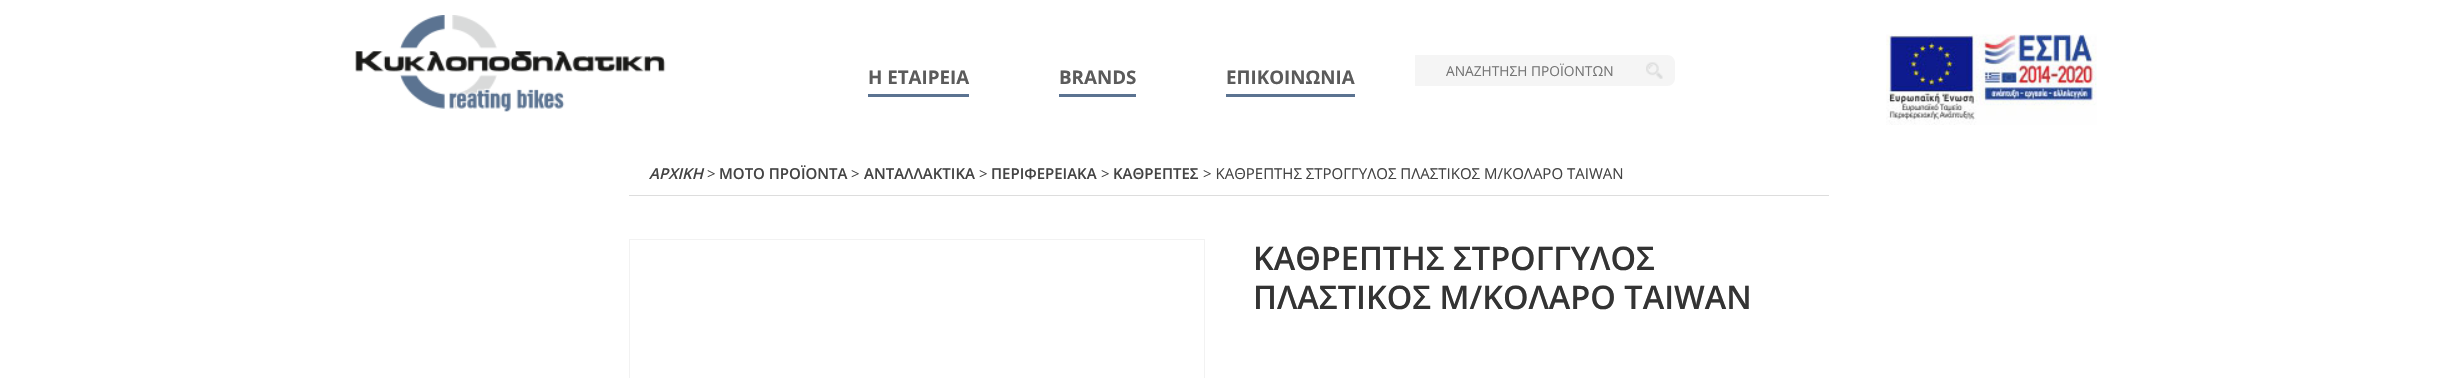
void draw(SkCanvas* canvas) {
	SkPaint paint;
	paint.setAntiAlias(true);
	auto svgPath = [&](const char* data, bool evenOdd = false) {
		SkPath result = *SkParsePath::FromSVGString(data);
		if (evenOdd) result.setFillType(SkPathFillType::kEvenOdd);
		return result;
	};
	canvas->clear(0xffffffff);
	canvas->drawImageRect(SkImages::DeferredFromEncodedData(SkData::MakeFromFileName("img1.png")), SkRect::MakeXYWH(355, 15, 311, 97), SkSamplingOptions());
	SkFont f1(fontMgr->matchFamilyStyle("Open Sans", SkFontStyle::Bold()), 18.75);
	f1.setSubpixel(true);
	paint.setColor(0xff5b5b5b);
	canvas->drawString("Η ΕΤΑΙΡΕΙΑ", 868, 84, f1, paint);
	paint.setColor(0xff5b7391);
	canvas->drawRect(SkRect::MakeXYWH(868, 94, 101, 3), paint);
	paint.setColor(0xff5b5b5b);
	canvas->drawString("BRANDS", 1059, 84, f1, paint);
	paint.setColor(0xff5b7391);
	canvas->drawRect(SkRect::MakeXYWH(1059, 94, 77, 3), paint);
	paint.setColor(0xff5b5b5b);
	canvas->drawString("ΕΠΙΚΟΙΝΩΝΙΑ", 1226, 84, f1, paint);
	paint.setColor(0xff5b7391);
	canvas->drawRect(SkRect::MakeXYWH(1226, 94, 129, 3), paint);
	paint.setColor(0xfff5f5f5);
	canvas->drawPath(svgPath("M1415 55H1667C1671.5 55 1675 58.5 1675 63V78C1675 82.5 1671.5 86 1667 86H1415Z"), paint);
	SkFont f2(fontMgr->matchFamilyStyle("Open Sans", SkFontStyle::Normal()), 13.75);
	f2.setSubpixel(true);
	paint.setColor(0xff757575);
	canvas->drawString("ΑΝΑΖΗΤΗΣΗ ΠΡΟΪΟΝΤΩΝ", 1446, 76, f2, paint);
	canvas->drawImageRect(SkImages::DeferredFromEncodedData(SkData::MakeFromFileName("img2.png")), SkRect::MakeXYWH(1646, 62, 17, 17), SkSamplingOptions());
	canvas->drawImageRect(SkImages::DeferredFromEncodedData(SkData::MakeFromFileName("img3.png")), SkRect::MakeXYWH(1886, 34, 211, 91), SkSamplingOptions());
	paint.setColor(0xffdddddd);
	canvas->drawRect(SkRect::MakeXYWH(629, 195, 1200, 1), paint);
	SkFont f3(fontMgr->matchFamilyStyle("Open Sans", SkFontStyle(600, SkFontStyle::kNormal_Width, SkFontStyle::kItalic_Slant)), 15);
	f3.setSubpixel(true);
	paint.setColor(0xff444444);
	canvas->drawString("ΑΡΧΙΚΗ", 649, 179, f3, paint);
	SkFont f4(fontMgr->matchFamilyStyle("Open Sans", SkFontStyle::Normal()), 15);
	f4.setSubpixel(true);
	canvas->drawString(">", 707, 179, f4, paint);
	SkFont f5(fontMgr->matchFamilyStyle("Open Sans", SkFontStyle(600, SkFontStyle::kNormal_Width, SkFontStyle::kUpright_Slant)), 15);
	f5.setSubpixel(true);
	canvas->drawString("ΜΟΤΟ ΠΡΟΪΟΝΤΑ", 719, 179, f5, paint);
	canvas->drawString(">", 851, 179, f4, paint);
	canvas->drawString("ΑΝΤΑΛΛΑΚΤΙΚΑ", 864, 179, f5, paint);
	canvas->drawString(">", 979, 179, f4, paint);
	canvas->drawString("ΠΕΡΙΦΕΡΕΙΑΚΑ", 991, 179, f5, paint);
	canvas->drawString(">", 1101, 179, f4, paint);
	canvas->drawString("ΚΑΘΡΕΠΤΕΣ", 1113, 179, f5, paint);
	canvas->drawString("> ΚΑΘΡΕΠΤΗΣ ΣΤΡΟΓΓΥΛΟΣ ΠΛΑΣΤΙΚΟΣ Μ/ΚΟΛΑΡΟ ΤΑΙWΑΝ", 1203, 179, f4, paint);
	paint.setStroke(true);
	paint.setStrokeWidth(1);
	paint.setColor(0xfff2f2f2);
	canvas->drawRect(SkRect::MakeXYWH(629.5, 239.5, 575, 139), paint);
	SkFont f6(fontMgr->matchFamilyStyle("Open Sans", SkFontStyle(600, SkFontStyle::kNormal_Width, SkFontStyle::kUpright_Slant)), 32.5);
	f6.setSubpixel(true);
	paint.setStroke(false);
	paint.setColor(0xff333333);
	canvas->drawString("ΚΑΘΡΕΠΤΗΣ ΣΤΡΟΓΓΥΛΟΣ", 1253, 270, f6, paint);
	canvas->drawString("ΠΛΑΣΤΙΚΟΣ Μ/ΚΟΛΑΡΟ ΤΑΙWΑΝ", 1253, 309, f6, paint);
}
